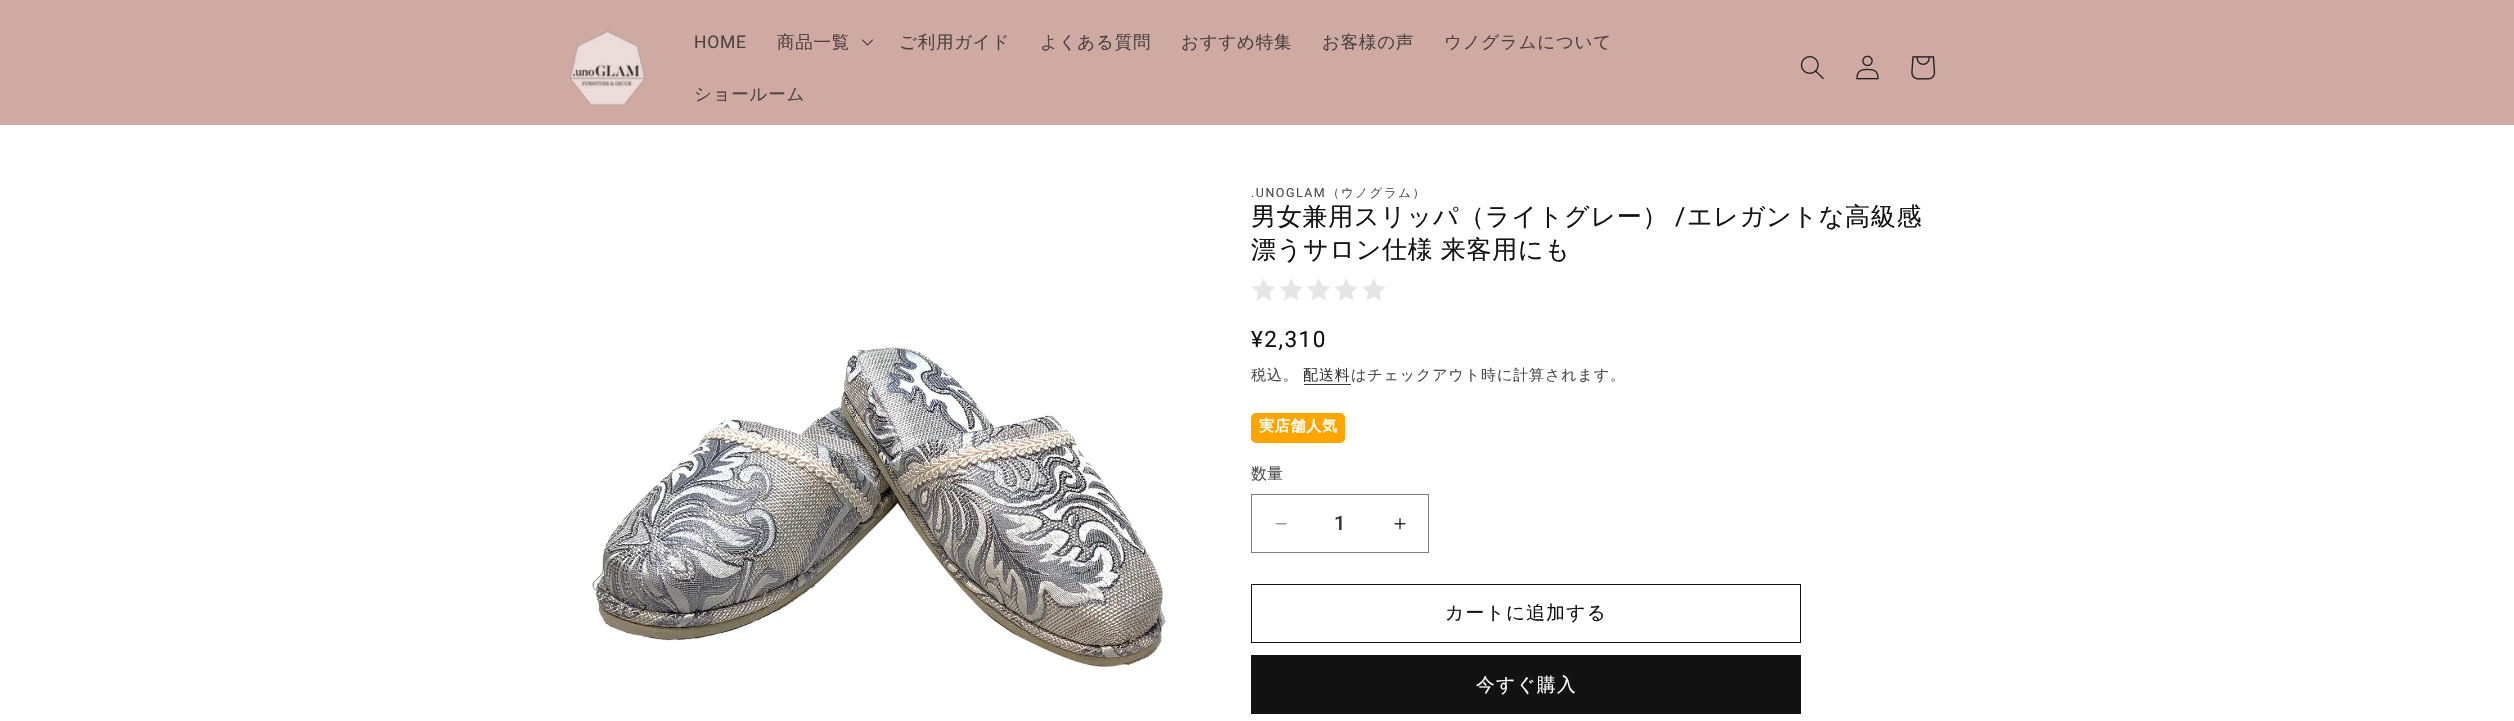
void draw(SkCanvas* canvas) {
	SkPaint paint;
	paint.setAntiAlias(true);
	auto spacedText = [&](const char* s, float x, float y, const SkFont& font, const SkPaint& ink, float letter, float word) {
		std::vector<SkGlyphID> glyphs(font.countText(s, strlen(s), SkTextEncoding::kUTF8));
		std::vector<float> xs(glyphs.size());
		font.textToGlyphs(s, strlen(s), SkTextEncoding::kUTF8, glyphs);
		font.getXPos(glyphs, xs, x);
		float extra = 0;
		for (size_t i = 0; i < glyphs.size(); i++) {
			xs[i] += extra;
			extra += letter + word * (glyphs[i] == font.unicharToGlyph(' '));
		}
		canvas->drawTextBlob(SkTextBlob::MakeFromPosHGlyphs(glyphs, xs, y, font), 0, 0, ink);
	};
	canvas->clear(0xffffffff);
	paint.setColor(0xffcfaaa3);
	canvas->drawRect(SkRect::MakeXYWH(0, 0, 2514, 125), paint);
	canvas->drawImageRect(SkImages::DeferredFromEncodedData(SkData::MakeFromFileName("img1.png")), SkRect::MakeXYWH(570, 31, 75, 74), SkSamplingOptions());
	SkFont f1(fontMgr->matchFamilyStyle("Roboto", SkFontStyle::Normal()), 17.5);
	f1.setSubpixel(true);
	paint.setColor(0xff4d4240);
	spacedText("HOME", 694, 48, f1, paint, 0.75, 0);
	SkFont f2(fontMgr->matchFamilyStyle("WenQuanYi Zen Hei", SkFontStyle(500, SkFontStyle::kNormal_Width, SkFontStyle::kUpright_Slant)), 17.5);
	f2.setSubpixel(true);
	spacedText("商品一覧", 777, 48, f2, paint, 0.75, 0);
	canvas->drawImageRect(SkImages::DeferredFromEncodedData(SkData::MakeFromFileName("img2.png")), SkRect::MakeXYWH(862, 39, 11, 7), SkSamplingOptions());
	spacedText("ご利用ガイド", 899, 48, f2, paint, 0.75, 0);
	spacedText("よくある質問", 1040, 48, f2, paint, 0.75, 0);
	spacedText("おすすめ特集", 1181, 48, f2, paint, 0.75, 0);
	spacedText("お客様の声", 1322, 48, f2, paint, 0.75, 0);
	spacedText("ウノグラムについて", 1444, 48, f2, paint, 0.75, 0);
	spacedText("ショールーム", 694, 100, f2, paint, 0.75, 0);
	canvas->drawImageRect(SkImages::DeferredFromEncodedData(SkData::MakeFromFileName("img3.png")), SkRect::MakeXYWH(1800, 56, 24, 24), SkSamplingOptions());
	canvas->drawImageRect(SkImages::DeferredFromEncodedData(SkData::MakeFromFileName("img4.png")), SkRect::MakeXYWH(1856, 55, 23, 25), SkSamplingOptions());
	canvas->drawImageRect(SkImages::DeferredFromEncodedData(SkData::MakeFromFileName("img5.png")), SkRect::MakeXYWH(1911, 56, 25, 24), SkSamplingOptions());
	canvas->drawImageRect(SkImages::DeferredFromEncodedData(SkData::MakeFromFileName("img6.png")), SkRect::MakeXYWH(592, 347, 574, 320), SkSamplingOptions());
	SkFont f3(fontMgr->matchFamilyStyle("Roboto", SkFontStyle::Normal()), 12.5);
	f3.setSubpixel(true);
	paint.setColor(0xff4d4d4d);
	spacedText(".UNOGLAM", 1251, 197, f3, paint, 1.5, 0);
	SkFont f4(fontMgr->matchFamilyStyle("WenQuanYi Zen Hei", SkFontStyle(500, SkFontStyle::kNormal_Width, SkFontStyle::kUpright_Slant)), 12.5);
	f4.setSubpixel(true);
	spacedText("（ウノグラム）", 1327, 197, f4, paint, 1.5, 0);
	SkFont f5(fontMgr->matchFamilyStyle("WenQuanYi Zen Hei", SkFontStyle(500, SkFontStyle::kNormal_Width, SkFontStyle::kUpright_Slant)), 25);
	f5.setSubpixel(true);
	paint.setColor(0xff121212);
	spacedText("男女兼用スリッパ（ライトグレー）", 1251, 225, f5, paint, 0.75, 0);
	SkFont f6(fontMgr->matchFamilyStyle("Roboto", SkFontStyle::Normal()), 25);
	f6.setSubpixel(true);
	spacedText("/", 1675, 225, f6, paint, 0.75, 0);
	spacedText("エレガントな高級感", 1687, 225, f5, paint, 0.75, 0);
	spacedText("漂うサロン仕様 来客用にも", 1251, 258, f5, paint, 0.75, -1);
	canvas->drawImageRect(SkImages::DeferredFromEncodedData(SkData::MakeFromFileName("img7.png")), SkRect::MakeXYWH(1252, 278, 23, 23), SkSamplingOptions());
	canvas->drawImageRect(SkImages::DeferredFromEncodedData(SkData::MakeFromFileName("img8.png")), SkRect::MakeXYWH(1280, 278, 23, 23), SkSamplingOptions());
	canvas->drawImageRect(SkImages::DeferredFromEncodedData(SkData::MakeFromFileName("img7.png")), SkRect::MakeXYWH(1307, 278, 23, 23), SkSamplingOptions());
	canvas->drawImageRect(SkImages::DeferredFromEncodedData(SkData::MakeFromFileName("img8.png")), SkRect::MakeXYWH(1335, 278, 23, 23), SkSamplingOptions());
	canvas->drawImageRect(SkImages::DeferredFromEncodedData(SkData::MakeFromFileName("img7.png")), SkRect::MakeXYWH(1362, 278, 23, 23), SkSamplingOptions());
	SkFont f7(fontMgr->matchFamilyStyle("Roboto", SkFontStyle::Normal()), 22.5);
	f7.setSubpixel(true);
	spacedText("¥2,310", 1251, 347, f7, paint, 1.5, 0);
	SkFont f8(fontMgr->matchFamilyStyle("WenQuanYi Zen Hei", SkFontStyle(500, SkFontStyle::kNormal_Width, SkFontStyle::kUpright_Slant)), 15);
	f8.setSubpixel(true);
	paint.setColor(0xff4d4d4d);
	spacedText("税込。", 1251, 380, f8, paint, 0.9, 0);
	paint.setColor(0xff363636);
	spacedText("配送料", 1303, 380, f8, paint, 0.9, 0);
	canvas->drawRect(SkRect::MakeXYWH(1304, 384, 47, 1), paint);
	paint.setColor(0xff4d4d4d);
	spacedText("はチェックアウト時に計算されます。", 1351, 380, f8, paint, 0.9, 0);
	paint.setColor(0xffffa500);
	canvas->drawRoundRect(SkRect::MakeXYWH(1251, 413, 94, 30), 5, 5, paint);
	SkFont f9(fontMgr->matchFamilyStyle("WenQuanYi Zen Hei", SkFontStyle::Bold()), 15);
	f9.setSubpixel(true);
	paint.setColor(0xffffffff);
	spacedText("実店舗人気", 1259, 431, f9, paint, 0.75, 0);
	SkFont f10(fontMgr->matchFamilyStyle("WenQuanYi Zen Hei", SkFontStyle(500, SkFontStyle::kNormal_Width, SkFontStyle::kUpright_Slant)), 16);
	f10.setSubpixel(true);
	paint.setColor(0xff4d4d4d);
	canvas->drawString("数量", 1251, 479, f10, paint);
	canvas->drawImageRect(SkImages::DeferredFromEncodedData(SkData::MakeFromFileName("img9.png")), SkRect::MakeXYWH(1275, 523, 12, 2), SkSamplingOptions());
	canvas->drawImageRect(SkImages::DeferredFromEncodedData(SkData::MakeFromFileName("img10.png")), SkRect::MakeXYWH(1394, 518, 12, 12), SkSamplingOptions());
	paint.setStroke(true);
	paint.setStrokeWidth(1);
	paint.setColor(0xff7d7d7d);
	canvas->drawRect(SkRect::MakeXYWH(1251.5, 494.5, 177, 58), paint);
	SkFont f11(fontMgr->matchFamilyStyle("Roboto", SkFontStyle(500, SkFontStyle::kNormal_Width, SkFontStyle::kUpright_Slant)), 20);
	f11.setSubpixel(true);
	paint.setStroke(false);
	paint.setColor(0xff363636);
	canvas->drawString("1", 1334, 530, f11, paint);
	paint.setStroke(true);
	paint.setColor(0xff121212);
	canvas->drawRect(SkRect::MakeXYWH(1251.5, 584.5, 549, 58), paint);
	SkFont f12(fontMgr->matchFamilyStyle("WenQuanYi Zen Hei", SkFontStyle(500, SkFontStyle::kNormal_Width, SkFontStyle::kUpright_Slant)), 18.75);
	f12.setSubpixel(true);
	paint.setStroke(false);
	spacedText("カートに追加する", 1445, 619, f12, paint, 1.25, 0);
	canvas->drawRect(SkRect::MakeXYWH(1251, 655, 550, 59), paint);
	paint.setColor(0xffffffff);
	spacedText("今すぐ購入", 1476, 691, f12, paint, 1.25, 0);
}
